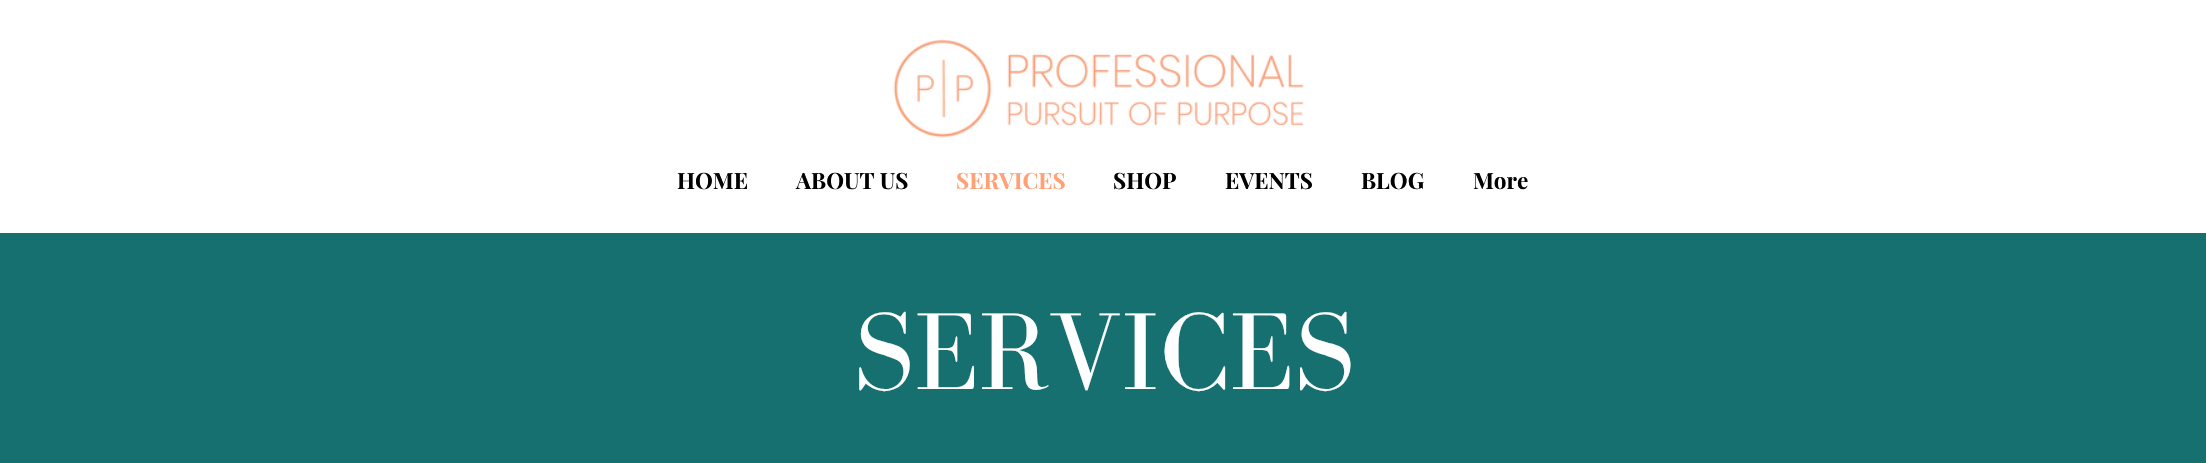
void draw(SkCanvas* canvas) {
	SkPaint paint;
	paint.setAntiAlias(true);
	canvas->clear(0xffffffff);
	canvas->drawImageRect(SkImages::DeferredFromEncodedData(SkData::MakeFromFileName("img1.png")), SkRect::MakeXYWH(893, 39, 411, 99), SkSamplingOptions());
	SkFont f1(fontMgr->matchFamilyStyle("Playfair Display", SkFontStyle::Bold()), 22.5);
	f1.setSubpixel(true);
	paint.setColor(0xff000000);
	canvas->drawString("HOME", 677, 189, f1, paint);
	canvas->drawString("ABOUT US", 796, 189, f1, paint);
	paint.setColor(0xffffa075);
	canvas->drawString("SERVICES", 956, 189, f1, paint);
	paint.setColor(0xff000000);
	canvas->drawString("SHOP", 1113, 189, f1, paint);
	canvas->drawString("EVENTS", 1225, 189, f1, paint);
	canvas->drawString("BLOG", 1361, 189, f1, paint);
	canvas->drawString("More", 1473, 189, f1, paint);
	paint.setColor(0xff177070);
	canvas->drawRect(SkRect::MakeXYWH(0, 233, 2206, 230), paint);
	SkFont f2(fontMgr->matchFamilyStyle("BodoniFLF", SkFontStyle::Normal()), 112.5);
	f2.setSubpixel(true);
	paint.setColor(0xffffffff);
	canvas->drawString("SERVICES", 853, 389, f2, paint);
}
